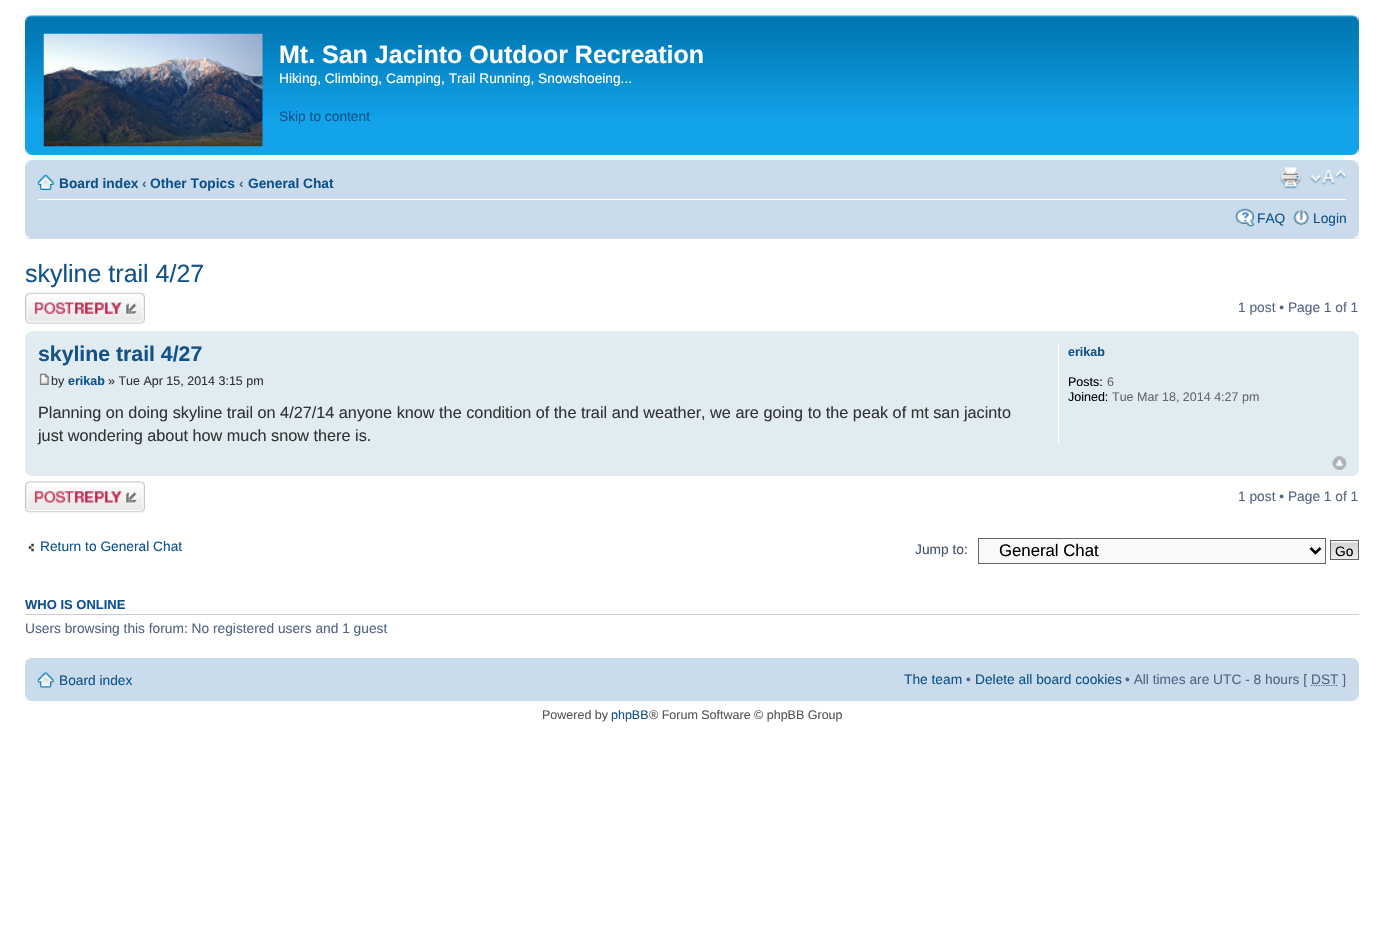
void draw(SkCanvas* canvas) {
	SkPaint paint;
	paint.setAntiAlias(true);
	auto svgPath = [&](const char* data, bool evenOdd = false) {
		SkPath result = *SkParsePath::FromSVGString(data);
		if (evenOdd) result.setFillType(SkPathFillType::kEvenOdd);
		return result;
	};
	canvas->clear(0xffffffff);
	paint.setColor(0xff12a3eb);
	canvas->drawRect(SkRect::MakeXYWH(25, 15, 1334, 140), paint);
	canvas->drawImageRect(SkImages::DeferredFromEncodedData(SkData::MakeFromFileName("img1.png")), SkRect::MakeXYWH(25, 15, 1334, 102), SkSamplingOptions());
	canvas->drawImageRect(SkImages::DeferredFromEncodedData(SkData::MakeFromFileName("img2.png")), SkRect::MakeXYWH(25, 15, 7, 7), SkSamplingOptions());
	canvas->drawImageRect(SkImages::DeferredFromEncodedData(SkData::MakeFromFileName("img3.png")), SkRect::MakeXYWH(1352, 15, 7, 7), SkSamplingOptions());
	canvas->drawImageRect(SkImages::DeferredFromEncodedData(SkData::MakeFromFileName("img4.png")), SkRect::MakeXYWH(43, 33, 220, 114), SkSamplingOptions());
	SkFont f1(fontMgr->matchFamilyStyle("Liberation Sans", SkFontStyle::Bold()), 25);
	f1.setSubpixel(true);
	paint.setColor(0xffffffff);
	canvas->drawString("Mt. San Jacinto Outdoor Recreation", 279, 63, f1, paint);
	SkFont f2(fontMgr->matchFamilyStyle("Liberation Sans", SkFontStyle::Normal()), 13.75);
	f2.setSubpixel(true);
	canvas->drawString("Hiking, Climbing, Camping, Trail Running, Snowshoeing...", 279, 83, f2, paint);
	paint.setColor(0xff105289);
	canvas->drawString("Skip to content", 279, 121, f2, paint);
	canvas->drawImageRect(SkImages::DeferredFromEncodedData(SkData::MakeFromFileName("img5.png")), SkRect::MakeXYWH(25, 148, 7, 7), SkSamplingOptions());
	canvas->drawImageRect(SkImages::DeferredFromEncodedData(SkData::MakeFromFileName("img6.png")), SkRect::MakeXYWH(1352, 148, 7, 7), SkSamplingOptions());
	paint.setColor(0xffcadceb);
	canvas->drawRect(SkRect::MakeXYWH(25, 160, 1334, 79), paint);
	canvas->drawImageRect(SkImages::DeferredFromEncodedData(SkData::MakeFromFileName("img7.png")), SkRect::MakeXYWH(25, 160, 7, 6), SkSamplingOptions());
	canvas->drawImageRect(SkImages::DeferredFromEncodedData(SkData::MakeFromFileName("img8.png")), SkRect::MakeXYWH(1352, 160, 7, 6), SkSamplingOptions());
	paint.setColor(0xffffffff);
	canvas->drawRect(SkRect::MakeXYWH(38, 199, 1308, 1), paint);
	canvas->drawImageRect(SkImages::DeferredFromEncodedData(SkData::MakeFromFileName("img9.png")), SkRect::MakeXYWH(37, 175, 17, 15), SkSamplingOptions());
	SkFont f3(fontMgr->matchFamilyStyle("Liberation Sans", SkFontStyle::Bold()), 13.75);
	f3.setSubpixel(true);
	paint.setColor(0xff105289);
	canvas->drawString("Board index", 59, 188, f3, paint);
	paint.setColor(0xff536482);
	canvas->drawString("‹", 142, 188, f3, paint);
	paint.setColor(0xff105289);
	canvas->drawString("Other Topics", 150, 188, f3, paint);
	paint.setColor(0xff536482);
	canvas->drawString("‹", 239, 188, f3, paint);
	paint.setColor(0xff105289);
	canvas->drawString("General Chat", 248, 188, f3, paint);
	canvas->drawImageRect(SkImages::DeferredFromEncodedData(SkData::MakeFromFileName("img10.png")), SkRect::MakeXYWH(1280, 167, 22, 22), SkSamplingOptions());
	canvas->drawImageRect(SkImages::DeferredFromEncodedData(SkData::MakeFromFileName("img11.png")), SkRect::MakeXYWH(1310, 170, 36, 15), SkSamplingOptions());
	canvas->drawImageRect(SkImages::DeferredFromEncodedData(SkData::MakeFromFileName("img12.png")), SkRect::MakeXYWH(1235, 208, 20, 19), SkSamplingOptions());
	canvas->drawString("FAQ", 1257, 223, f2, paint);
	canvas->drawImageRect(SkImages::DeferredFromEncodedData(SkData::MakeFromFileName("img13.png")), SkRect::MakeXYWH(1293, 210, 16, 16), SkSamplingOptions());
	canvas->drawString("Login", 1313, 223, f2, paint);
	canvas->drawImageRect(SkImages::DeferredFromEncodedData(SkData::MakeFromFileName("img14.png")), SkRect::MakeXYWH(25, 232, 6, 7), SkSamplingOptions());
	canvas->drawImageRect(SkImages::DeferredFromEncodedData(SkData::MakeFromFileName("img15.png")), SkRect::MakeXYWH(1352, 232, 7, 7), SkSamplingOptions());
	SkFont f4(fontMgr->matchFamilyStyle("Liberation Sans", SkFontStyle::Normal()), 25);
	f4.setSubpixel(true);
	canvas->drawString("skyline trail 4/27", 25, 282, f4, paint);
	canvas->drawImageRect(SkImages::DeferredFromEncodedData(SkData::MakeFromFileName("img16.png")), SkRect::MakeXYWH(25, 292, 120, 32), SkSamplingOptions());
	paint.setColor(0xff536482);
	canvas->drawString("1 post • Page 1 of 1", 1238, 312, f2, paint);
	paint.setColor(0xffe1ebf2);
	canvas->drawRect(SkRect::MakeXYWH(25, 331, 1334, 145), paint);
	canvas->drawImageRect(SkImages::DeferredFromEncodedData(SkData::MakeFromFileName("img17.png")), SkRect::MakeXYWH(25, 331, 6, 6), SkSamplingOptions());
	canvas->drawImageRect(SkImages::DeferredFromEncodedData(SkData::MakeFromFileName("img18.png")), SkRect::MakeXYWH(1353, 331, 6, 6), SkSamplingOptions());
	SkFont f5(fontMgr->matchFamilyStyle("Liberation Sans", SkFontStyle::Bold()), 21.25);
	f5.setSubpixel(true);
	paint.setColor(0xff105289);
	canvas->drawString("skyline trail 4/27", 38, 361, f5, paint);
	canvas->drawImageRect(SkImages::DeferredFromEncodedData(SkData::MakeFromFileName("img19.png")), SkRect::MakeXYWH(39, 373, 10, 12), SkSamplingOptions());
	SkFont f6(fontMgr->matchFamilyStyle("Liberation Sans", SkFontStyle::Normal()), 12.5);
	f6.setSubpixel(true);
	paint.setColor(0xff333333);
	canvas->drawString("by", 51, 385, f6, paint);
	SkFont f7(fontMgr->matchFamilyStyle("Liberation Sans", SkFontStyle::Bold()), 12.5);
	f7.setSubpixel(true);
	paint.setColor(0xff105289);
	canvas->drawString("erikab", 68, 385, f7, paint);
	paint.setColor(0xff333333);
	canvas->drawString("» Tue Apr 15, 2014 3:15 pm", 108, 385, f6, paint);
	SkFont f8(fontMgr->matchFamilyStyle("Liberation Sans", SkFontStyle::Normal()), 16.25);
	f8.setSubpixel(true);
	canvas->drawString("Planning on doing skyline trail on 4/27/14 anyone know the condition of the trail and weather, we are going to the peak of mt san jacinto", 38, 418, f8, paint);
	canvas->drawString("just wondering about how much snow there is.", 38, 441, f8, paint);
	paint.setColor(0xffffffff);
	canvas->drawRect(SkRect::MakeXYWH(1058, 344, 1, 100), paint);
	paint.setColor(0xff105289);
	canvas->drawString("erikab", 1068, 356, f7, paint);
	paint.setColor(0xff000000);
	canvas->drawString("Posts:", 1068, 386, f6, paint);
	paint.setColor(0xff666666);
	canvas->drawString("6", 1107, 386, f6, paint);
	paint.setColor(0xff000000);
	canvas->drawString("Joined:", 1068, 401, f6, paint);
	paint.setColor(0xff666666);
	canvas->drawString("Tue Mar 18, 2014 4:27 pm", 1112, 401, f6, paint);
	canvas->drawImageRect(SkImages::DeferredFromEncodedData(SkData::MakeFromFileName("img20.png")), SkRect::MakeXYWH(1332, 456, 15, 14), SkSamplingOptions());
	canvas->drawImageRect(SkImages::DeferredFromEncodedData(SkData::MakeFromFileName("img21.png")), SkRect::MakeXYWH(25, 470, 6, 6), SkSamplingOptions());
	canvas->drawImageRect(SkImages::DeferredFromEncodedData(SkData::MakeFromFileName("img22.png")), SkRect::MakeXYWH(1353, 470, 6, 6), SkSamplingOptions());
	canvas->drawImageRect(SkImages::DeferredFromEncodedData(SkData::MakeFromFileName("img23.png")), SkRect::MakeXYWH(25, 481, 120, 32), SkSamplingOptions());
	paint.setColor(0xff536482);
	canvas->drawString("1 post • Page 1 of 1", 1238, 501, f2, paint);
	canvas->drawImageRect(SkImages::DeferredFromEncodedData(SkData::MakeFromFileName("img24.png")), SkRect::MakeXYWH(28, 543, 6, 9), SkSamplingOptions());
	paint.setColor(0xff105289);
	canvas->drawString("Return to General Chat", 40, 551, f2, paint);
	paint.setColor(0xff425067);
	canvas->drawString("Jump to:", 915, 554, f2, paint);
	paint.setColor(0xfffafafa);
	canvas->drawRect(SkRect::MakeXYWH(978.5, 538.5, 347, 25), paint);
	paint.setStroke(true);
	paint.setStrokeWidth(1);
	paint.setColor(0xff666666);
	canvas->drawRect(SkRect::MakeXYWH(978.5, 538.5, 347, 25), paint);
	paint.setStrokeWidth(2.5);
	paint.setColor(0xff000000);
	canvas->drawPath(svgPath("M1310.5 548L1315.5 553L1320.5 548"), paint);
	SkFont f9(fontMgr->matchFamilyStyle("Liberation Sans", SkFontStyle::Normal()), 16.75);
	f9.setSubpixel(true);
	paint.setStroke(false);
	canvas->drawString("General Chat", 999, 556, f9, paint);
	paint.setColor(0xfffafafa);
	canvas->drawRect(SkRect::MakeXYWH(1331, 541, 27, 1), paint);
	canvas->drawImageRect(SkImages::DeferredFromEncodedData(SkData::MakeFromFileName("img25.png")), SkRect::MakeXYWH(1331, 542, 27, 17), SkSamplingOptions());
	paint.setStroke(true);
	paint.setStrokeWidth(1);
	paint.setColor(0xff666666);
	canvas->drawRect(SkRect::MakeXYWH(1330.5, 540.5, 28, 19), paint);
	paint.setStroke(false);
	paint.setColor(0xff000000);
	canvas->drawString("Go", 1335, 556, f2, paint);
	paint.setColor(0xffcccccc);
	canvas->drawRect(SkRect::MakeXYWH(25, 614, 1334, 1), paint);
	SkFont f10(fontMgr->matchFamilyStyle("Liberation Sans", SkFontStyle::Bold()), 13);
	f10.setSubpixel(true);
	paint.setColor(0xff115098);
	canvas->drawString("WHO IS ONLINE", 25, 609, f10, paint);
	paint.setColor(0xff536482);
	canvas->drawString("Users browsing this forum: No registered users and 1 guest", 25, 633, f2, paint);
	paint.setColor(0xffcadceb);
	canvas->drawRect(SkRect::MakeXYWH(25, 658, 1334, 43), paint);
	canvas->drawImageRect(SkImages::DeferredFromEncodedData(SkData::MakeFromFileName("img26.png")), SkRect::MakeXYWH(25, 658, 6, 6), SkSamplingOptions());
	canvas->drawImageRect(SkImages::DeferredFromEncodedData(SkData::MakeFromFileName("img27.png")), SkRect::MakeXYWH(1352, 658, 7, 6), SkSamplingOptions());
	canvas->drawImageRect(SkImages::DeferredFromEncodedData(SkData::MakeFromFileName("img28.png")), SkRect::MakeXYWH(37, 672, 17, 16), SkSamplingOptions());
	paint.setColor(0xff105289);
	canvas->drawString("Board index", 59, 685, f2, paint);
	canvas->drawString("The team", 904, 684, f2, paint);
	paint.setColor(0xff536482);
	canvas->drawString("•", 966, 684, f2, paint);
	paint.setColor(0xff105289);
	canvas->drawString("Delete all board cookies", 975, 684, f2, paint);
	paint.setColor(0xff536482);
	canvas->drawString("• All times are UTC - 8 hours [", 1125, 684, f2, paint);
	paint.setStroke(true);
	paint.setStrokeWidth(1.2);
	paint.setPathEffect(SkDashPathEffect::Make({{1.25f, 1.25f}}, 0));
	canvas->drawPath(svgPath("M1311 685.5H1338.5"), paint);
	paint.setPathEffect(nullptr);
	paint.setStroke(false);
	canvas->drawString("DST ]", 1311, 684, f2, paint);
	canvas->drawImageRect(SkImages::DeferredFromEncodedData(SkData::MakeFromFileName("img29.png")), SkRect::MakeXYWH(25, 695, 6, 6), SkSamplingOptions());
	canvas->drawImageRect(SkImages::DeferredFromEncodedData(SkData::MakeFromFileName("img30.png")), SkRect::MakeXYWH(1352, 695, 7, 6), SkSamplingOptions());
	paint.setColor(0xff555555);
	canvas->drawString("Powered by", 542, 719, f6, paint);
	paint.setColor(0xff105289);
	canvas->drawString("phpBB", 611, 719, f6, paint);
	paint.setColor(0xff555555);
	canvas->drawString("® Forum Software © phpBB Group", 649, 719, f6, paint);
}
